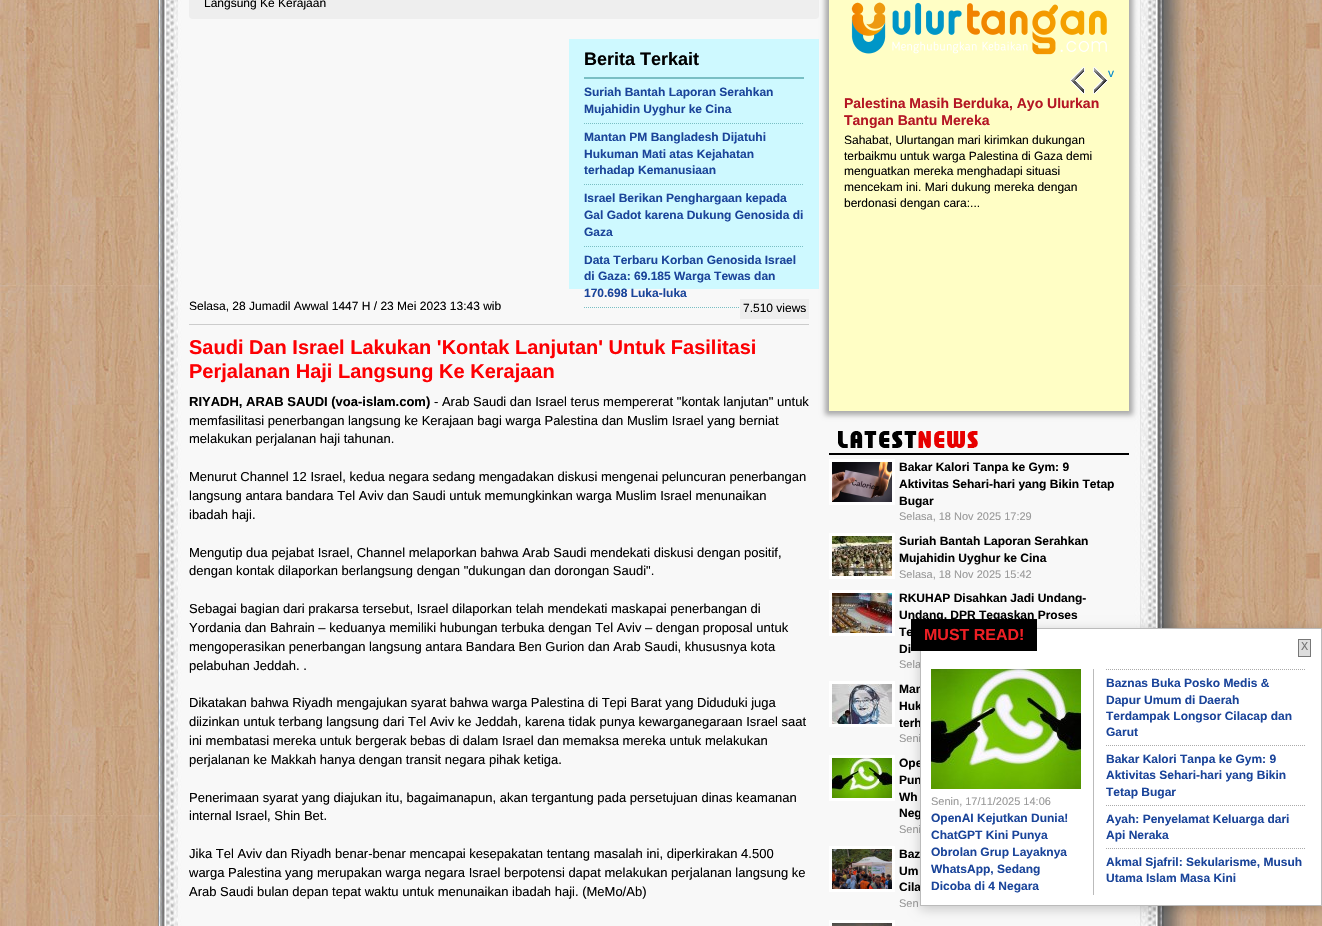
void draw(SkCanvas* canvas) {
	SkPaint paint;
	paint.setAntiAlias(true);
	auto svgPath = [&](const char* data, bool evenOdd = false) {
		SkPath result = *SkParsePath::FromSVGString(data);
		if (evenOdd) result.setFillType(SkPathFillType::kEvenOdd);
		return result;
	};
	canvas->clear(0xffffffff);
	canvas->drawImageRect(SkImages::DeferredFromEncodedData(SkData::MakeFromFileName("img1.png")), SkRect::MakeXYWH(0, 0, 1322, 926), SkSamplingOptions());
	canvas->drawImageRect(SkImages::DeferredFromEncodedData(SkData::MakeFromFileName("img2.png")), SkRect::MakeXYWH(158, 0, 1006, 926), SkSamplingOptions());
	canvas->save();
	canvas->clipPath(svgPath("M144 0H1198V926H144ZM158-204H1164V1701H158Z", true), true);
	paint.setColor(0xff666666);
	paint.setMaskFilter(SkMaskFilter::MakeBlur(kNormal_SkBlurStyle, 7.5));
	canvas->drawRect(SkRect::MakeXYWH(168, -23, 1006, 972), paint);
	paint.setMaskFilter(nullptr);
	canvas->restore();
	paint.setColor(0xffeeeeee);
	canvas->drawRoundRect(SkRect::MakeXYWH(189, -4, 630, 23), 4, 4, paint);
	SkFont f1(fontMgr->matchFamilyStyle("Liberation Sans", SkFontStyle::Normal()), 12);
	f1.setSubpixel(true);
	paint.setColor(0xff000000);
	canvas->drawString("Langsung Ke Kerajaan", 204, 7, f1, paint);
	paint.setColor(0xffcef9ff);
	canvas->drawRect(SkRect::MakeXYWH(569, 39, 250, 250), paint);
	paint.setColor(0xff79bfc4);
	canvas->drawRect(SkRect::MakeXYWH(584, 77, 220, 2), paint);
	SkFont f2(fontMgr->matchFamilyStyle("Liberation Sans", SkFontStyle::Bold()), 18);
	f2.setSubpixel(true);
	paint.setColor(0xff000000);
	canvas->drawString("Berita Terkait", 584, 65, f2, paint);
	paint.setStroke(true);
	paint.setStrokeWidth(1);
	paint.setColor(0xff79bfc4);
	paint.setPathEffect(SkDashPathEffect::Make({{1, 1}}, 0));
	canvas->drawPath(svgPath("M584 123.5H804"), paint);
	paint.setPathEffect(nullptr);
	SkFont f3(fontMgr->matchFamilyStyle("Liberation Sans", SkFontStyle::Bold()), 12);
	f3.setSubpixel(true);
	paint.setStroke(false);
	paint.setColor(0xff1b459a);
	canvas->drawString("Suriah Bantah Laporan Serahkan", 584, 96, f3, paint);
	canvas->drawString("Mujahidin Uyghur ke Cina", 584, 113, f3, paint);
	paint.setStroke(true);
	paint.setColor(0xff79bfc4);
	paint.setPathEffect(SkDashPathEffect::Make({{1, 1}}, 0));
	canvas->drawPath(svgPath("M584 184.5H804"), paint);
	paint.setPathEffect(nullptr);
	paint.setStroke(false);
	paint.setColor(0xff1b459a);
	canvas->drawString("Mantan PM Bangladesh Dijatuhi", 584, 141, f3, paint);
	canvas->drawString("Hukuman Mati atas Kejahatan", 584, 158, f3, paint);
	canvas->drawString("terhadap Kemanusiaan", 584, 174, f3, paint);
	paint.setStroke(true);
	paint.setColor(0xff79bfc4);
	paint.setPathEffect(SkDashPathEffect::Make({{1, 1}}, 0));
	canvas->drawPath(svgPath("M584 246.5H804"), paint);
	paint.setPathEffect(nullptr);
	paint.setStroke(false);
	paint.setColor(0xff1b459a);
	canvas->drawString("Israel Berikan Penghargaan kepada", 584, 202, f3, paint);
	canvas->drawString("Gal Gadot karena Dukung Genosida di", 584, 219, f3, paint);
	canvas->drawString("Gaza", 584, 236, f3, paint);
	paint.setStroke(true);
	paint.setColor(0xff79bfc4);
	paint.setPathEffect(SkDashPathEffect::Make({{1, 1}}, 0));
	canvas->drawPath(svgPath("M584 307.5H804"), paint);
	paint.setPathEffect(nullptr);
	paint.setStroke(false);
	paint.setColor(0xff1b459a);
	canvas->drawString("Data Terbaru Korban Genosida Israel", 584, 264, f3, paint);
	canvas->drawString("di Gaza: 69.185 Warga Tewas dan", 584, 280, f3, paint);
	canvas->drawString("170.698 Luka-luka", 584, 297, f3, paint);
	paint.setColor(0xff000000);
	canvas->drawString("Selasa, 28 Jumadil Awwal 1447 H / 23 Mei 2023 13:43 wib", 189, 310, f1, paint);
	paint.setColor(0xffededed);
	canvas->drawRect(SkRect::MakeXYWH(740, 299, 69, 20), paint);
	paint.setColor(0xff000000);
	canvas->drawString("7.510 views", 743, 312, f1, paint);
	paint.setColor(0xffcccccc);
	canvas->drawRect(SkRect::MakeXYWH(189, 324, 620, 1), paint);
	SkFont f4(fontMgr->matchFamilyStyle("Liberation Sans", SkFontStyle::Bold()), 20);
	f4.setSubpixel(true);
	paint.setColor(0xfffd0003);
	canvas->drawString("Saudi Dan Israel Lakukan 'Kontak Lanjutan' Untuk Fasilitasi", 189, 354, f4, paint);
	canvas->drawString("Perjalanan Haji Langsung Ke Kerajaan", 189, 378, f4, paint);
	SkFont f5(fontMgr->matchFamilyStyle("Liberation Sans", SkFontStyle::Bold()), 13);
	f5.setSubpixel(true);
	paint.setColor(0xff000000);
	canvas->drawString("RIYADH, ARAB SAUDI (voa-islam.com)", 189, 406, f5, paint);
	SkFont f6(fontMgr->matchFamilyStyle("Liberation Sans", SkFontStyle::Normal()), 13);
	f6.setSubpixel(true);
	canvas->drawString("- Arab Saudi dan Israel terus mempererat \"kontak lanjutan\" untuk", 434, 406, f6, paint);
	canvas->drawString("memfasilitasi penerbangan langsung ke Kerajaan bagi warga Palestina dan Muslim Israel yang berniat", 189, 425, f6, paint);
	canvas->drawString("melakukan perjalanan haji tahunan.", 189, 443, f6, paint);
	canvas->drawString("Menurut Channel 12 Israel, kedua negara sedang mengadakan diskusi mengenai peluncuran penerbangan", 189, 481, f6, paint);
	canvas->drawString("langsung antara bandara Tel Aviv dan Saudi untuk memungkinkan warga Muslim Israel menunaikan", 189, 500, f6, paint);
	canvas->drawString("ibadah haji.", 189, 519, f6, paint);
	canvas->drawString("Mengutip dua pejabat Israel, Channel melaporkan bahwa Arab Saudi mendekati diskusi dengan positif,", 189, 557, f6, paint);
	canvas->drawString("dengan kontak dilaporkan berlangsung dengan \"dukungan dan dorongan Saudi\".", 189, 575, f6, paint);
	canvas->drawString("Sebagai bagian dari prakarsa tersebut, Israel dilaporkan telah mendekati maskapai penerbangan di", 189, 613, f6, paint);
	canvas->drawString("Yordania dan Bahrain – keduanya memiliki hubungan terbuka dengan Tel Aviv – dengan proposal untuk", 189, 632, f6, paint);
	canvas->drawString("mengoperasikan penerbangan langsung antara Bandara Ben Gurion dan Arab Saudi, khususnya kota", 189, 651, f6, paint);
	canvas->drawString("pelabuhan Jeddah. .", 189, 670, f6, paint);
	canvas->drawString("Dikatakan bahwa Riyadh mengajukan syarat bahwa warga Palestina di Tepi Barat yang Diduduki juga", 189, 707, f6, paint);
	canvas->drawString("diizinkan untuk terbang langsung dari Tel Aviv ke Jeddah, karena tidak punya kewarganegaraan Israel saat", 189, 726, f6, paint);
	canvas->drawString("ini membatasi mereka untuk bergerak bebas di dalam Israel dan memaksa mereka untuk melakukan", 189, 745, f6, paint);
	canvas->drawString("perjalanan ke Makkah hanya dengan transit negara pihak ketiga.", 189, 764, f6, paint);
	canvas->drawString("Penerimaan syarat yang diajukan itu, bagaimanapun, akan tergantung pada persetujuan dinas keamanan", 189, 802, f6, paint);
	canvas->drawString("internal Israel, Shin Bet.", 189, 820, f6, paint);
	canvas->drawString("Jika Tel Aviv dan Riyadh benar-benar mencapai kesepakatan tentang masalah ini, diperkirakan 4.500", 189, 858, f6, paint);
	canvas->drawString("warga Palestina yang merupakan warga negara Israel berpotensi dapat melakukan perjalanan langsung ke", 189, 877, f6, paint);
	canvas->drawString("Arab Saudi bulan depan tepat waktu untuk menunaikan ibadah haji. (MeMo/Ab)", 189, 896, f6, paint);
	paint.setColor(0xffaaaaaa);
	paint.setMaskFilter(SkMaskFilter::MakeBlur(kNormal_SkBlurStyle, 2.5));
	canvas->drawRect(SkRect::MakeXYWH(825, -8, 308, 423), paint);
	paint.setMaskFilter(nullptr);
	paint.setColor(0xfffffec5);
	canvas->drawRect(SkRect::MakeXYWH(829, 0, 300, 411), paint);
	canvas->drawImageRect(SkImages::DeferredFromEncodedData(SkData::MakeFromFileName("img3.png")), SkRect::MakeXYWH(851, 2, 256, 53), SkSamplingOptions());
	paint.setColor(0xff0088cc);
	canvas->drawString("v", 1108, 77, f1, paint);
	canvas->drawImageRect(SkImages::DeferredFromEncodedData(SkData::MakeFromFileName("img4.png")), SkRect::MakeXYWH(1093, 67, 15, 27), SkSamplingOptions());
	canvas->drawImageRect(SkImages::DeferredFromEncodedData(SkData::MakeFromFileName("img5.png")), SkRect::MakeXYWH(1070, 67, 15, 27), SkSamplingOptions());
	SkFont f7(fontMgr->matchFamilyStyle("Liberation Sans", SkFontStyle::Bold()), 14);
	f7.setSubpixel(true);
	paint.setColor(0xffb41624);
	canvas->drawString("Palestina Masih Berduka, Ayo Ulurkan", 844, 108, f7, paint);
	canvas->drawString("Tangan Bantu Mereka", 844, 125, f7, paint);
	paint.setColor(0xff000000);
	canvas->drawString("Sahabat, Ulurtangan mari kirimkan dukungan", 844, 144, f1, paint);
	canvas->drawString("terbaikmu untuk warga Palestina di Gaza demi", 844, 160, f1, paint);
	canvas->drawString("menguatkan mereka menghadapi situasi", 844, 175, f1, paint);
	canvas->drawString("mencekam ini. Mari dukung mereka dengan", 844, 191, f1, paint);
	canvas->drawString("berdonasi dengan cara:...", 844, 207, f1, paint);
	canvas->drawImageRect(SkImages::DeferredFromEncodedData(SkData::MakeFromFileName("img6.png")), SkRect::MakeXYWH(838, 431, 140, 17), SkSamplingOptions());
	canvas->drawRect(SkRect::MakeXYWH(829, 453, 300, 2), paint);
	paint.setColor(0xffffffff);
	canvas->drawRect(SkRect::MakeXYWH(829, 459, 66, 46), paint);
	canvas->drawImageRect(SkImages::DeferredFromEncodedData(SkData::MakeFromFileName("img7.png")), SkRect::MakeXYWH(832, 462, 60, 40), SkSamplingOptions());
	paint.setColor(0xff000000);
	canvas->drawString("Bakar Kalori Tanpa ke Gym: 9", 899, 471, f3, paint);
	canvas->drawString("Aktivitas Sehari-hari yang Bikin Tetap", 899, 488, f3, paint);
	canvas->drawString("Bugar", 899, 505, f3, paint);
	SkFont f8(fontMgr->matchFamilyStyle("Liberation Sans", SkFontStyle::Normal()), 11);
	f8.setSubpixel(true);
	paint.setColor(0xff999999);
	canvas->drawString("Selasa, 18 Nov 2025 17:29", 899, 520, f8, paint);
	paint.setColor(0xffffffff);
	canvas->drawRect(SkRect::MakeXYWH(829, 533, 66, 46), paint);
	canvas->drawImageRect(SkImages::DeferredFromEncodedData(SkData::MakeFromFileName("img8.png")), SkRect::MakeXYWH(832, 536, 60, 40), SkSamplingOptions());
	paint.setColor(0xff000000);
	canvas->drawString("Suriah Bantah Laporan Serahkan", 899, 545, f3, paint);
	canvas->drawString("Mujahidin Uyghur ke Cina", 899, 562, f3, paint);
	paint.setColor(0xff999999);
	canvas->drawString("Selasa, 18 Nov 2025 15:42", 899, 578, f8, paint);
	paint.setColor(0xffffffff);
	canvas->drawRect(SkRect::MakeXYWH(829, 590, 66, 46), paint);
	canvas->drawImageRect(SkImages::DeferredFromEncodedData(SkData::MakeFromFileName("img9.png")), SkRect::MakeXYWH(832, 593, 60, 40), SkSamplingOptions());
	paint.setColor(0xff000000);
	canvas->drawString("RKUHAP Disahkan Jadi Undang-", 899, 602, f3, paint);
	canvas->drawString("Undang, DPR Tegaskan Proses", 899, 619, f3, paint);
	canvas->drawString("Te", 899, 636, f3, paint);
	canvas->drawString("Di", 899, 653, f3, paint);
	paint.setColor(0xff999999);
	canvas->drawString("Sela", 899, 668, f8, paint);
	paint.setColor(0xffffffff);
	canvas->drawRect(SkRect::MakeXYWH(829, 681, 66, 46), paint);
	canvas->drawImageRect(SkImages::DeferredFromEncodedData(SkData::MakeFromFileName("img10.png")), SkRect::MakeXYWH(832, 684, 60, 40), SkSamplingOptions());
	paint.setColor(0xff000000);
	canvas->drawString("Man", 899, 693, f3, paint);
	canvas->drawString("Huk", 899, 710, f3, paint);
	canvas->drawString("terh", 899, 727, f3, paint);
	paint.setColor(0xff999999);
	canvas->drawString("Seni", 899, 742, f8, paint);
	paint.setColor(0xffffffff);
	canvas->drawRect(SkRect::MakeXYWH(829, 755, 66, 46), paint);
	canvas->drawImageRect(SkImages::DeferredFromEncodedData(SkData::MakeFromFileName("img11.png")), SkRect::MakeXYWH(832, 758, 60, 40), SkSamplingOptions());
	paint.setColor(0xff000000);
	canvas->drawString("Ope", 899, 767, f3, paint);
	canvas->drawString("Pun", 899, 784, f3, paint);
	canvas->drawString("Wh", 899, 801, f3, paint);
	canvas->drawString("Neg", 899, 817, f3, paint);
	paint.setColor(0xff999999);
	canvas->drawString("Seni", 899, 833, f8, paint);
	paint.setColor(0xffffffff);
	canvas->drawRect(SkRect::MakeXYWH(829, 846, 66, 46), paint);
	canvas->drawImageRect(SkImages::DeferredFromEncodedData(SkData::MakeFromFileName("img12.png")), SkRect::MakeXYWH(832, 849, 60, 40), SkSamplingOptions());
	paint.setColor(0xff000000);
	canvas->drawString("Baz", 899, 858, f3, paint);
	canvas->drawString("Um", 899, 875, f3, paint);
	canvas->drawString("Cila", 899, 891, f3, paint);
	paint.setColor(0xff999999);
	canvas->drawString("Sen", 899, 907, f8, paint);
	paint.setColor(0xffffffff);
	canvas->drawRect(SkRect::MakeXYWH(829, 920, 66, 6), paint);
	canvas->drawImageRect(SkImages::DeferredFromEncodedData(SkData::MakeFromFileName("img13.png")), SkRect::MakeXYWH(832, 923, 60, 3), SkSamplingOptions());
	paint.setColor(0x33000000);
	paint.setMaskFilter(SkMaskFilter::MakeBlur(kNormal_SkBlurStyle, 5.5));
	canvas->drawRect(SkRect::MakeXYWH(920, 631, 402, 278), paint);
	paint.setMaskFilter(nullptr);
	paint.setColor(0xffffffff);
	canvas->drawRect(SkRect::MakeXYWH(920.5, 628.5, 401, 277), paint);
	paint.setStroke(true);
	paint.setColor(0xffbbbbbb);
	canvas->drawRect(SkRect::MakeXYWH(920.5, 628.5, 401, 277), paint);
	paint.setStroke(false);
	paint.setColor(0xff000000);
	canvas->drawRect(SkRect::MakeXYWH(911, 619, 126, 32), paint);
	SkFont f9(fontMgr->matchFamilyStyle("Liberation Sans", SkFontStyle::Bold()), 16);
	f9.setSubpixel(true);
	paint.setColor(0xffed1f24);
	canvas->drawString("MUST READ!", 924, 640, f9, paint);
	paint.setColor(0xffdddddd);
	canvas->drawRect(SkRect::MakeXYWH(1298.5, 639.5, 12, 17), paint);
	paint.setStroke(true);
	paint.setColor(0xff777777);
	canvas->drawRect(SkRect::MakeXYWH(1298.5, 639.5, 12, 17), paint);
	SkFont f10(fontMgr->matchFamilyStyle("Liberation Mono", SkFontStyle::Normal()), 12);
	f10.setSubpixel(true);
	paint.setStroke(false);
	canvas->drawString("X", 1301, 650, f10, paint);
	paint.setColor(0xffbbbbbb);
	canvas->drawRect(SkRect::MakeXYWH(1093, 669, 1, 226), paint);
	canvas->drawImageRect(SkImages::DeferredFromEncodedData(SkData::MakeFromFileName("img14.png")), SkRect::MakeXYWH(931, 669, 150, 120), SkSamplingOptions());
	paint.setColor(0xff999999);
	canvas->drawString("Senin, 17/11/2025 14:06", 931, 805, f8, paint);
	paint.setColor(0xff1b459a);
	canvas->drawString("OpenAI Kejutkan Dunia!", 931, 822, f3, paint);
	canvas->drawString("ChatGPT Kini Punya", 931, 839, f3, paint);
	canvas->drawString("Obrolan Grup Layaknya", 931, 856, f3, paint);
	canvas->drawString("WhatsApp, Sedang", 931, 873, f3, paint);
	canvas->drawString("Dicoba di 4 Negara", 931, 890, f3, paint);
	paint.setStroke(true);
	paint.setColor(0xffaaaaaa);
	paint.setPathEffect(SkDashPathEffect::Make({{1, 1}}, 0));
	canvas->drawPath(svgPath("M1106 669.5H1306"), paint);
	paint.setPathEffect(nullptr);
	paint.setStroke(false);
	paint.setColor(0xff1b459a);
	canvas->drawString("Baznas Buka Posko Medis &", 1106, 687, f3, paint);
	canvas->drawString("Dapur Umum di Daerah", 1106, 704, f3, paint);
	canvas->drawString("Terdampak Longsor Cilacap dan", 1106, 720, f3, paint);
	canvas->drawString("Garut", 1106, 736, f3, paint);
	paint.setStroke(true);
	paint.setColor(0xffaaaaaa);
	paint.setPathEffect(SkDashPathEffect::Make({{1, 1}}, 0));
	canvas->drawPath(svgPath("M1106 745.5H1306"), paint);
	paint.setPathEffect(nullptr);
	paint.setStroke(false);
	paint.setColor(0xff1b459a);
	canvas->drawString("Bakar Kalori Tanpa ke Gym: 9", 1106, 763, f3, paint);
	canvas->drawString("Aktivitas Sehari-hari yang Bikin", 1106, 779, f3, paint);
	canvas->drawString("Tetap Bugar", 1106, 796, f3, paint);
	paint.setStroke(true);
	paint.setColor(0xffaaaaaa);
	paint.setPathEffect(SkDashPathEffect::Make({{1, 1}}, 0));
	canvas->drawPath(svgPath("M1106 805.5H1306"), paint);
	paint.setPathEffect(nullptr);
	paint.setStroke(false);
	paint.setColor(0xff1b459a);
	canvas->drawString("Ayah: Penyelamat Keluarga dari", 1106, 823, f3, paint);
	canvas->drawString("Api Neraka", 1106, 839, f3, paint);
	paint.setStroke(true);
	paint.setColor(0xffaaaaaa);
	paint.setPathEffect(SkDashPathEffect::Make({{1, 1}}, 0));
	canvas->drawPath(svgPath("M1106 848.5H1306"), paint);
	paint.setPathEffect(nullptr);
	paint.setStroke(false);
	paint.setColor(0xff1b459a);
	canvas->drawString("Akmal Sjafril: Sekularisme, Musuh", 1106, 866, f3, paint);
	canvas->drawString("Utama Islam Masa Kini", 1106, 882, f3, paint);
}
